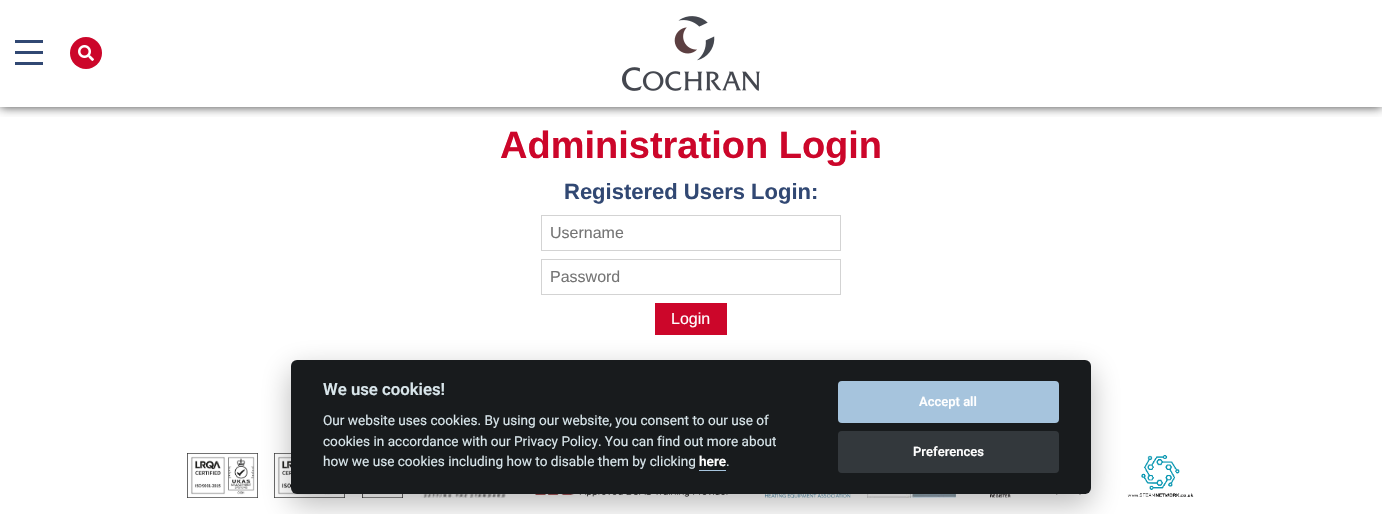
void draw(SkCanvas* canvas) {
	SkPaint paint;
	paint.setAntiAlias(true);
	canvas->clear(0xffffffff);
	canvas->save();
	canvas->clipRect(SkRect::MakeXYWH(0, 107, 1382, 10));
	paint.setColor(0xbf000000);
	paint.setMaskFilter(SkMaskFilter::MakeBlur(kNormal_SkBlurStyle, 5));
	canvas->drawRect(SkRect::MakeXYWH(0, 0, 1382, 107), paint);
	paint.setMaskFilter(nullptr);
	canvas->restore();
	paint.setColor(0xff314873);
	canvas->drawRect(SkRect::MakeXYWH(15, 40, 28, 3), paint);
	canvas->drawRect(SkRect::MakeXYWH(15, 51, 28, 3), paint);
	canvas->drawRect(SkRect::MakeXYWH(15, 62, 28, 3), paint);
	paint.setColor(0xffcc062a);
	canvas->drawCircle(86, 53, 16, paint);
	canvas->drawImageRect(SkImages::DeferredFromEncodedData(SkData::MakeFromFileName("img1.png")), SkRect::MakeXYWH(78, 45, 16, 16), SkSamplingOptions());
	canvas->drawImageRect(SkImages::DeferredFromEncodedData(SkData::MakeFromFileName("img2.png")), SkRect::MakeXYWH(622, 16, 138, 75), SkSamplingOptions());
	SkFont f1(fontMgr->matchFamilyStyle("Liberation Sans", SkFontStyle::Bold()), 38);
	f1.setSubpixel(true);
	canvas->drawString("Administration Login", 500, 158, f1, paint);
	SkFont f2(fontMgr->matchFamilyStyle("Liberation Sans", SkFontStyle::Bold()), 22);
	f2.setSubpixel(true);
	paint.setColor(0xff314873);
	canvas->drawString("Registered Users Login:", 564, 199, f2, paint);
	paint.setStroke(true);
	paint.setStrokeWidth(1);
	paint.setColor(0xffd3d3d3);
	canvas->drawRect(SkRect::MakeXYWH(541.5, 215.5, 299, 35), paint);
	SkFont f3(fontMgr->matchFamilyStyle("Liberation Sans", SkFontStyle::Normal()), 16);
	f3.setSubpixel(true);
	paint.setStroke(false);
	paint.setColor(0xff757575);
	canvas->drawString("Username", 550, 238, f3, paint);
	paint.setStroke(true);
	paint.setColor(0xffd3d3d3);
	canvas->drawRect(SkRect::MakeXYWH(541.5, 259.5, 299, 35), paint);
	paint.setStroke(false);
	paint.setColor(0xff757575);
	canvas->drawString("Password", 550, 282, f3, paint);
	paint.setColor(0xffcc062a);
	canvas->drawRect(SkRect::MakeXYWH(655, 303, 72, 32), paint);
	paint.setColor(0xffffffff);
	canvas->drawString("Login", 671, 324, f3, paint);
	canvas->drawImageRect(SkImages::DeferredFromEncodedData(SkData::MakeFromFileName("img3.png")), SkRect::MakeXYWH(187, 453, 71, 45), SkSamplingOptions());
	canvas->drawImageRect(SkImages::DeferredFromEncodedData(SkData::MakeFromFileName("img4.png")), SkRect::MakeXYWH(274, 453, 71, 45), SkSamplingOptions());
	canvas->drawImageRect(SkImages::DeferredFromEncodedData(SkData::MakeFromFileName("img5.png")), SkRect::MakeXYWH(362, 494, 41, 4), SkSamplingOptions());
	canvas->drawImageRect(SkImages::DeferredFromEncodedData(SkData::MakeFromFileName("img6.png")), SkRect::MakeXYWH(420, 494, 86, 4), SkSamplingOptions());
	canvas->drawImageRect(SkImages::DeferredFromEncodedData(SkData::MakeFromFileName("img7.png")), SkRect::MakeXYWH(533, 494, 196, 3), SkSamplingOptions());
	canvas->drawImageRect(SkImages::DeferredFromEncodedData(SkData::MakeFromFileName("img8.png")), SkRect::MakeXYWH(765, 494, 86, 4), SkSamplingOptions());
	canvas->drawImageRect(SkImages::DeferredFromEncodedData(SkData::MakeFromFileName("img9.png")), SkRect::MakeXYWH(867, 494, 89, 4), SkSamplingOptions());
	canvas->drawImageRect(SkImages::DeferredFromEncodedData(SkData::MakeFromFileName("img10.png")), SkRect::MakeXYWH(990, 494, 21, 4), SkSamplingOptions());
	canvas->drawImageRect(SkImages::DeferredFromEncodedData(SkData::MakeFromFileName("img11.png")), SkRect::MakeXYWH(1056, 493, 31, 2), SkSamplingOptions());
	canvas->drawImageRect(SkImages::DeferredFromEncodedData(SkData::MakeFromFileName("img12.png")), SkRect::MakeXYWH(1127, 455, 67, 42), SkSamplingOptions());
	paint.setColor(0x47020203);
	paint.setMaskFilter(SkMaskFilter::MakeBlur(kNormal_SkBlurStyle, 15));
	canvas->drawRoundRect(SkRect::MakeXYWH(291, 370, 800, 134), 6, 6, paint);
	paint.setMaskFilter(nullptr);
	paint.setColor(0xff181b1d);
	canvas->drawRoundRect(SkRect::MakeXYWH(291, 360, 800, 134), 6, 6, paint);
	SkFont f4(fontMgr->matchFamilyStyle("Roboto", SkFontStyle(600, SkFontStyle::kNormal_Width, SkFontStyle::kUpright_Slant)), 16.75);
	f4.setSubpixel(true);
	paint.setColor(0xffd8e5ea);
	canvas->drawString("We use cookies!", 323, 395, f4, paint);
	SkFont f5(fontMgr->matchFamilyStyle("Roboto", SkFontStyle::Normal()), 13.6);
	f5.setSubpixel(true);
	canvas->drawString("Our website uses cookies. By using our website, you consent to our use of", 323, 425, f5, paint);
	canvas->drawString("cookies in accordance with our Privacy Policy. You can find out more about", 323, 446, f5, paint);
	canvas->drawString("how we use cookies including how to disable them by clicking", 323, 466, f5, paint);
	SkFont f6(fontMgr->matchFamilyStyle("Roboto", SkFontStyle(600, SkFontStyle::kNormal_Width, SkFontStyle::kUpright_Slant)), 13.6);
	f6.setSubpixel(true);
	paint.setColor(0xffffffff);
	canvas->drawString("here", 699, 466, f6, paint);
	paint.setColor(0xffa6c4dd);
	canvas->drawRect(SkRect::MakeXYWH(699, 470, 27, 1), paint);
	paint.setColor(0xffd8e5ea);
	canvas->drawString(".", 726, 466, f5, paint);
	paint.setColor(0xffa6c4dd);
	canvas->drawRoundRect(SkRect::MakeXYWH(838, 381, 221, 42), 4, 4, paint);
	SkFont f7(fontMgr->matchFamilyStyle("Roboto", SkFontStyle(600, SkFontStyle::kNormal_Width, SkFontStyle::kUpright_Slant)), 13);
	f7.setSubpixel(true);
	paint.setColor(0xffffffff);
	canvas->drawString("Accept all", 919, 406, f7, paint);
	paint.setColor(0xff33383c);
	canvas->drawRoundRect(SkRect::MakeXYWH(838, 431, 221, 42), 4, 4, paint);
	paint.setColor(0xffffffff);
	canvas->drawString("Preferences", 913, 456, f7, paint);
}
